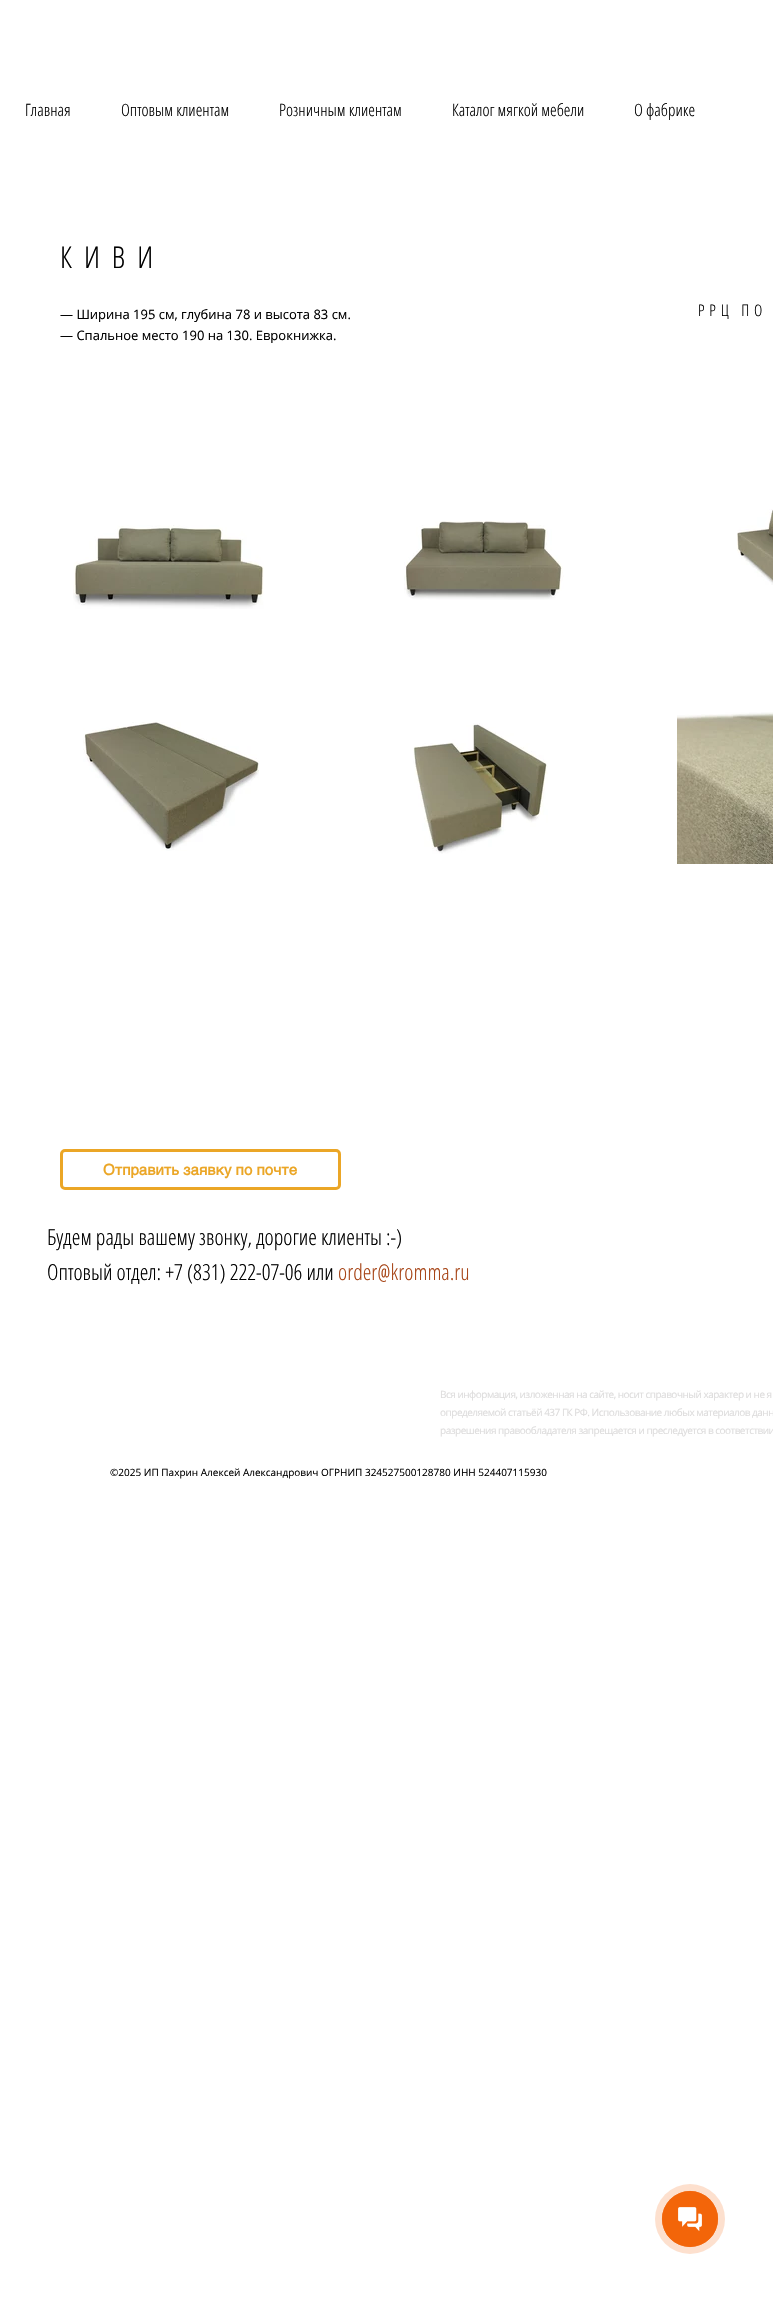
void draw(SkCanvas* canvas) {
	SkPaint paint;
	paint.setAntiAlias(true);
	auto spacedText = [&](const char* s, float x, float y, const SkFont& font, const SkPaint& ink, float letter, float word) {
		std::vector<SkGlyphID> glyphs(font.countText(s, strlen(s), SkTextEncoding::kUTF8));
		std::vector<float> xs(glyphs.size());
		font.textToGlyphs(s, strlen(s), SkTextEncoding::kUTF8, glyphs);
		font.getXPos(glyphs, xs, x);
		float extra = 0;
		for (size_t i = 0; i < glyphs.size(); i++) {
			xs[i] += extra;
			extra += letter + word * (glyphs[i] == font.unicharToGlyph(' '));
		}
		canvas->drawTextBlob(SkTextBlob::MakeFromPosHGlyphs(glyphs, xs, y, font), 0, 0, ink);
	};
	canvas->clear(0xffffffff);
	SkFont f1(fontMgr->matchFamilyStyle("Open Sans Condensed", SkFontStyle(300, SkFontStyle::kNormal_Width, SkFontStyle::kUpright_Slant)), 17);
	f1.setSubpixel(true);
	paint.setColor(0xff000000);
	canvas->drawString("Главная", 25, 116, f1, paint);
	canvas->drawString("Оптовым клиентам", 121, 116, f1, paint);
	canvas->drawString("Розничным клиентам", 279, 116, f1, paint);
	canvas->drawString("Каталог мягкой мебели", 452, 116, f1, paint);
	canvas->drawString("О фабрике", 634, 116, f1, paint);
	SkFont f2(fontMgr->matchFamilyStyle("Open Sans Condensed", SkFontStyle(300, SkFontStyle::kNormal_Width, SkFontStyle::kUpright_Slant)), 30);
	f2.setSubpixel(true);
	spacedText("КИВИ", 60, 268, f2, paint, 12, 0);
	SkFont f3(fontMgr->matchFamilyStyle("Open Sans", SkFontStyle::Normal()), 13);
	f3.setSubpixel(true);
	canvas->drawString("— Ширина 195 см, глубина 78 и высота 83 см.", 60, 319, f3, paint);
	canvas->drawString("— Спальное место 190 на 130. Еврокнижка.", 60, 340, f3, paint);
	SkFont f4(fontMgr->matchFamilyStyle("Open Sans Condensed", SkFontStyle(300, SkFontStyle::kNormal_Width, SkFontStyle::kUpright_Slant)), 16);
	f4.setSubpixel(true);
	spacedText("РРЦ ПО", 698, 316, f4, paint, 4.75, 0);
	canvas->drawImageRect(SkImages::DeferredFromEncodedData(SkData::MakeFromFileName("img1.png")), SkRect::MakeXYWH(73, 525, 191, 84), SkSamplingOptions());
	canvas->drawImageRect(SkImages::DeferredFromEncodedData(SkData::MakeFromFileName("img2.png")), SkRect::MakeXYWH(404, 521, 160, 79), SkSamplingOptions());
	canvas->drawImageRect(SkImages::DeferredFromEncodedData(SkData::MakeFromFileName("img3.png")), SkRect::MakeXYWH(737, 509, 36, 76), SkSamplingOptions());
	canvas->drawImageRect(SkImages::DeferredFromEncodedData(SkData::MakeFromFileName("img4.png")), SkRect::MakeXYWH(83, 722, 176, 129), SkSamplingOptions());
	canvas->drawImageRect(SkImages::DeferredFromEncodedData(SkData::MakeFromFileName("img5.png")), SkRect::MakeXYWH(413, 723, 135, 131), SkSamplingOptions());
	canvas->drawImageRect(SkImages::DeferredFromEncodedData(SkData::MakeFromFileName("img6.png")), SkRect::MakeXYWH(677, 712, 96, 152), SkSamplingOptions());
	paint.setStroke(true);
	paint.setStrokeWidth(3);
	paint.setColor(0xffeba626);
	canvas->drawRoundRect(SkRect::MakeXYWH(61.5, 1150.5, 278, 38), 3.5, 3.5, paint);
	SkFont f5(fontMgr->matchFamilyStyle("helvetica", SkFontStyle::Bold()), 15);
	f5.setSubpixel(true);
	paint.setStroke(false);
	canvas->drawString("Отправить заявку по почте", 103, 1175, f5, paint);
	SkFont f6(fontMgr->matchFamilyStyle("Open Sans Condensed", SkFontStyle(300, SkFontStyle::kNormal_Width, SkFontStyle::kUpright_Slant)), 22);
	f6.setSubpixel(true);
	paint.setColor(0xff000000);
	canvas->drawString("Будем рады вашему звонку, дорогие клиенты :-)", 47, 1245, f6, paint);
	canvas->drawString("Оптовый отдел: +7 (831) 222-07-06 или", 47, 1280, f6, paint);
	paint.setColor(0xffa74517);
	canvas->drawString("order@kromma.ru", 338, 1280, f6, paint);
	SkFont f7(fontMgr->matchFamilyStyle("Open Sans", SkFontStyle::Normal()), 10);
	f7.setSubpixel(true);
	paint.setColor(0xffdddcdc);
	spacedText("Вся информация, изложенная на сайте, носит справочный характер и не я", 440, 1398, f7, paint, -0.5, 0);
	spacedText("определяемой статьёй 437 ГК РФ. Использование любых материалов данн", 440, 1416, f7, paint, -0.5, 0);
	spacedText("разрешения правообладателя запрещается и преследуется в соответствии", 440, 1434, f7, paint, -0.5, 0);
	paint.setColor(0xff000000);
	canvas->drawString("©2025 ИП Пахрин Алексей Александрович ОГРНИП 324527500128780 ИНН 524407115930", 110, 1476, f7, paint);
	paint.setColor(0xfffde0ce);
	canvas->drawCircle(690, 2219, 35, paint);
	paint.setStroke(true);
	paint.setStrokeWidth(0.8);
	paint.setColor(0xfff36509);
	canvas->drawCircle(690, 2219, 27.6, paint);
	paint.setStroke(false);
	canvas->drawCircle(690, 2219, 28, paint);
	canvas->drawImageRect(SkImages::DeferredFromEncodedData(SkData::MakeFromFileName("img7.png")), SkRect::MakeXYWH(678, 2207, 24, 24), SkSamplingOptions());
}
